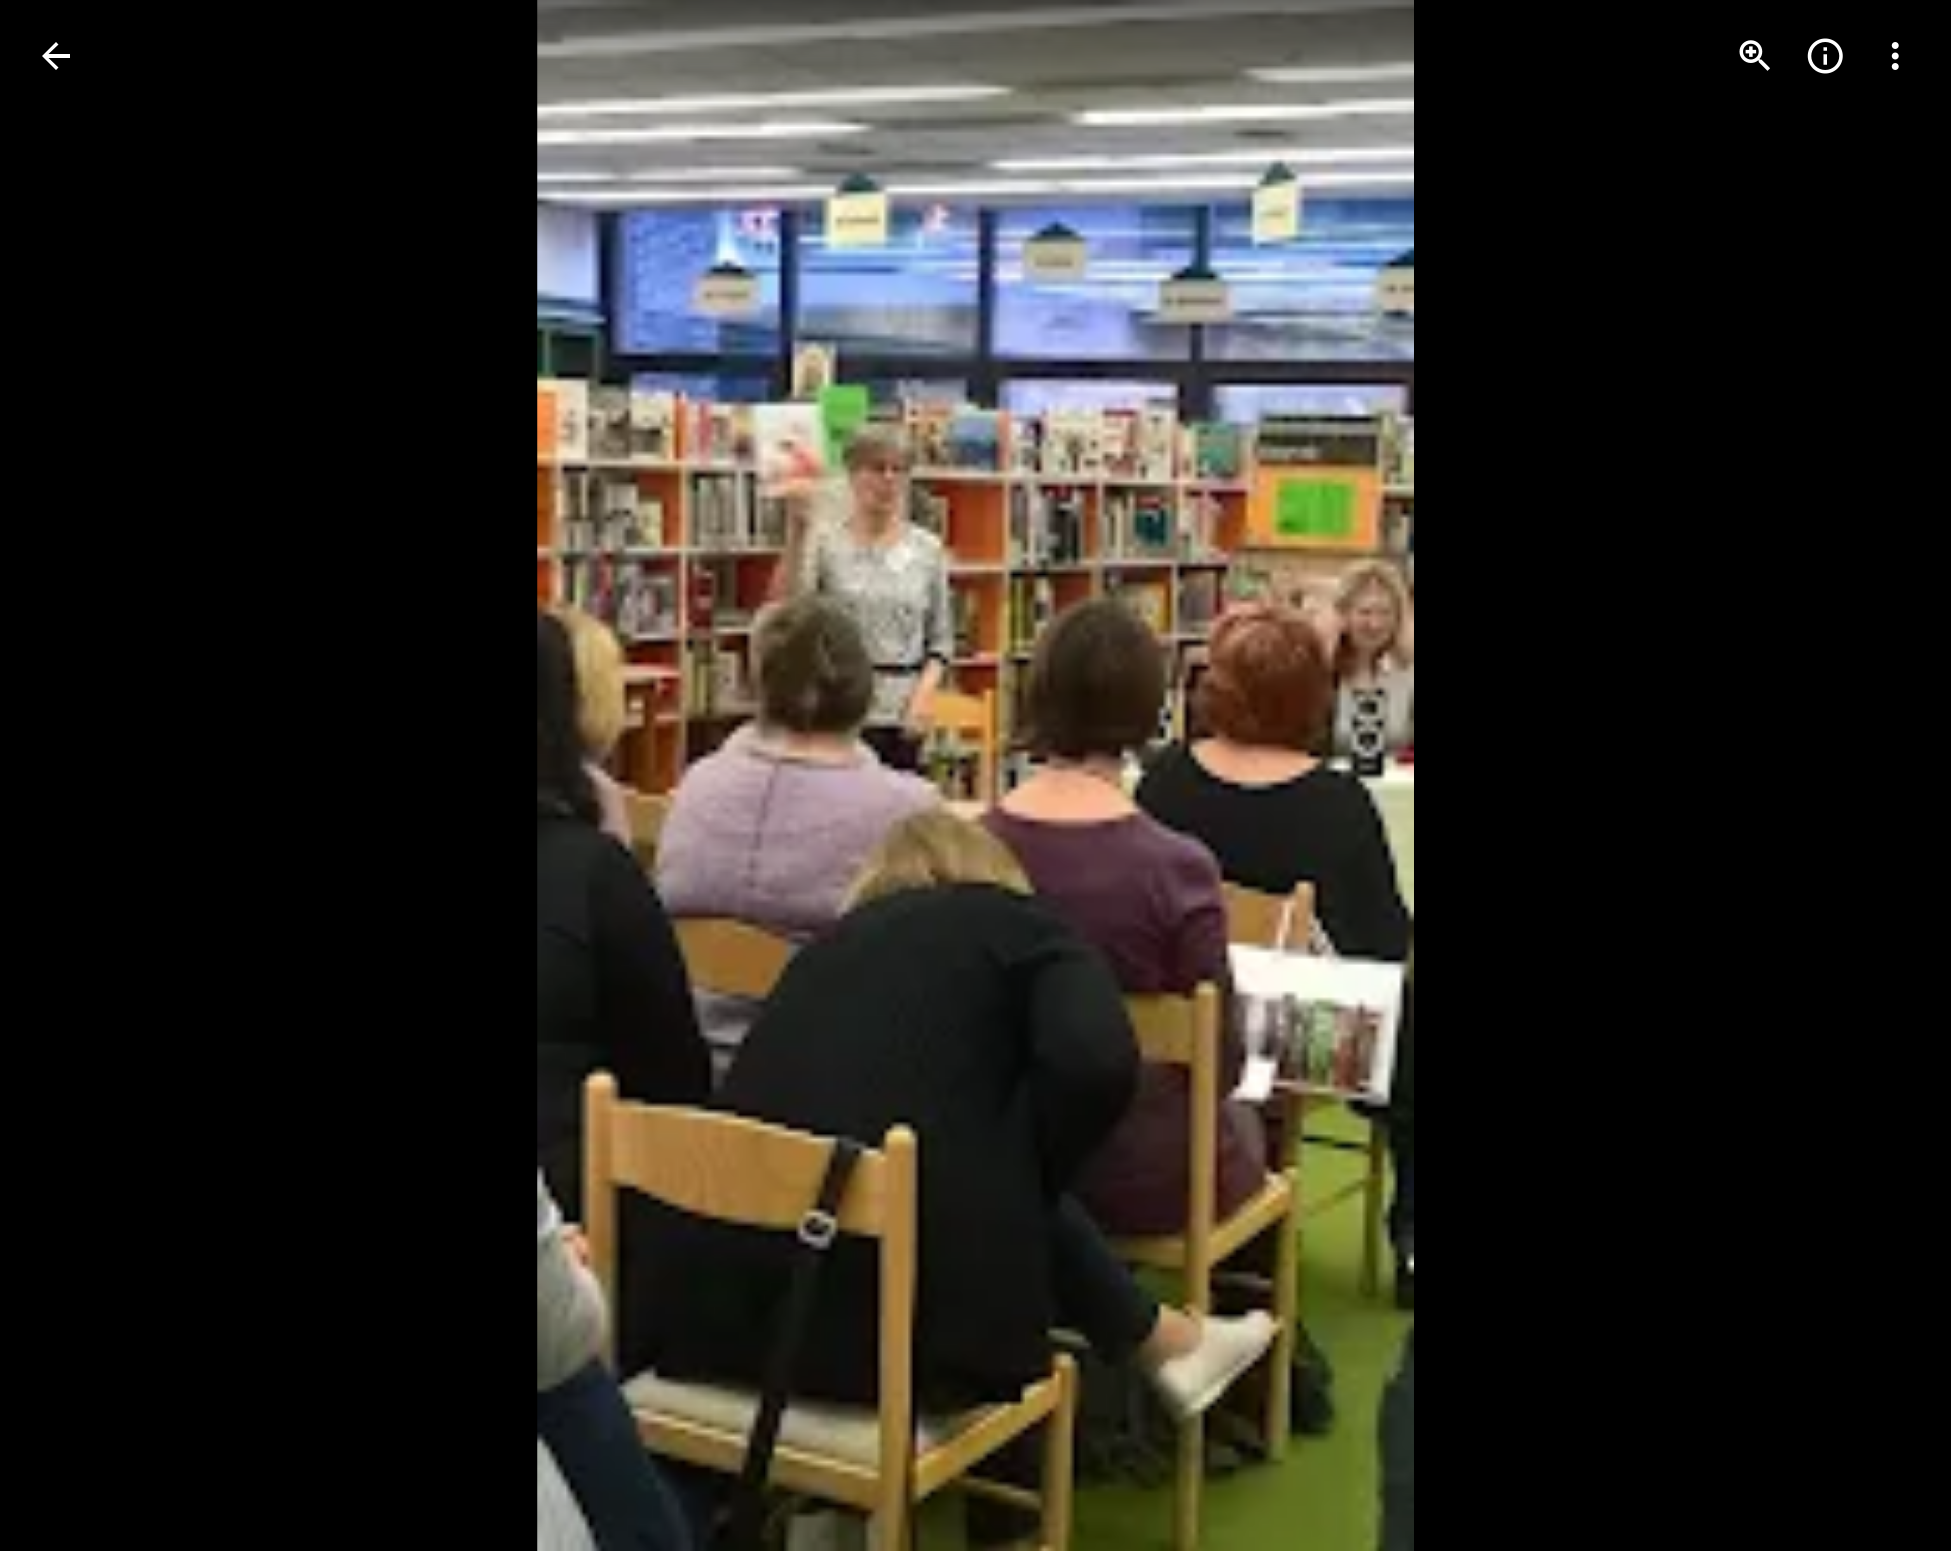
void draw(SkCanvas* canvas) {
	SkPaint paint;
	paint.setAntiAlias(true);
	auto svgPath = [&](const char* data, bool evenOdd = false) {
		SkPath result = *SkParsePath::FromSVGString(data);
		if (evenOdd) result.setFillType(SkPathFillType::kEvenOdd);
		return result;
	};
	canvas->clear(0xff000000);
	canvas->drawImageRect(SkImages::DeferredFromEncodedData(SkData::MakeFromFileName("img4.png")), SkRect::MakeXYWH(537, 0, 877, 1551), SkSamplingOptions());
	{
		const SkColor colors[] = {0x99000000, 0x00000000};
		const float stops[] = {0, 1};
		const SkPoint ends[] = {{976, 0}, {976, 112}};
		paint.setShader(SkGradientShader::MakeLinear(ends, colors, stops, 2, SkTileMode::kClamp));
		paint.setAlpha(255);
	}
	canvas->drawRect(SkRect::MakeXYWH(537, 0, 877, 108), paint);
	paint.setShader(nullptr);
	paint.setColor(0xffffffff);
	canvas->drawPath(svgPath("M70 54H48.5L58.5 44.5L56 42L42 56L56 70L58.5 67.5L48.5 58H70Z"), paint);
	canvas->drawImageRect(SkImages::DeferredFromEncodedData(SkData::MakeFromFileName("img1.png")), SkRect::MakeXYWH(1739, 40, 31, 31), SkSamplingOptions());
	canvas->drawImageRect(SkImages::DeferredFromEncodedData(SkData::MakeFromFileName("img2.png")), SkRect::MakeXYWH(1807, 38, 36, 36), SkSamplingOptions());
	canvas->drawImageRect(SkImages::DeferredFromEncodedData(SkData::MakeFromFileName("img3.png")), SkRect::MakeXYWH(1891, 42, 8, 28), SkSamplingOptions());
}
